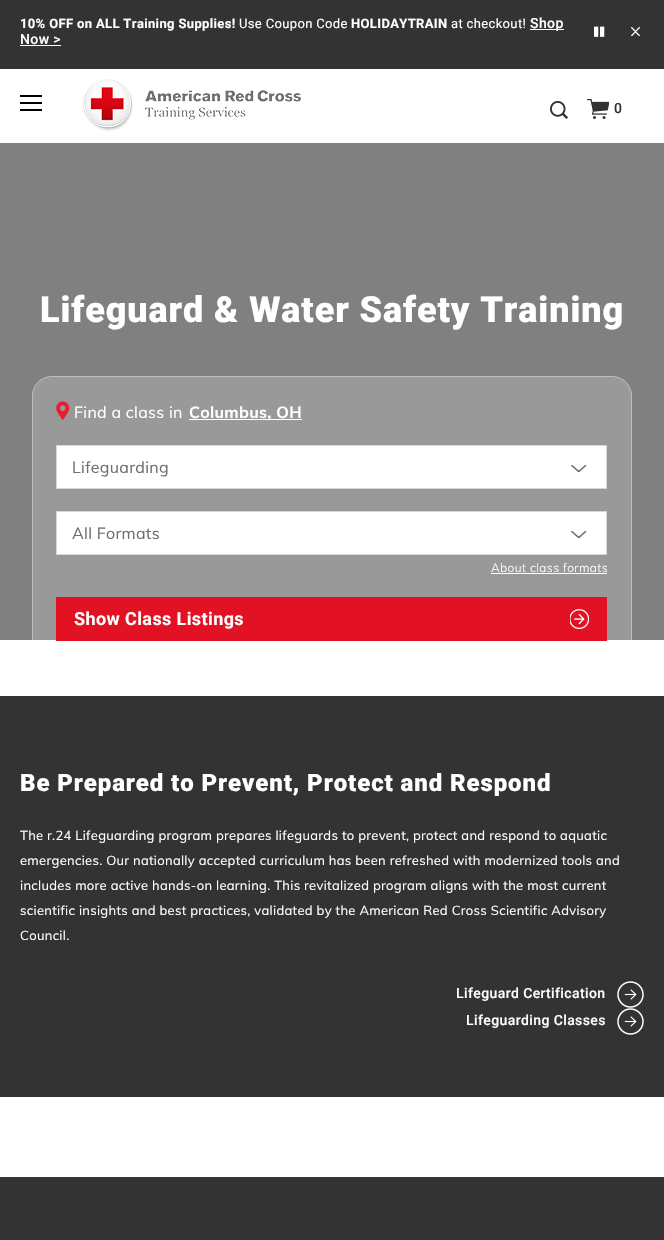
void draw(SkCanvas* canvas) {
	SkPaint paint;
	paint.setAntiAlias(true);
	auto spacedText = [&](const char* s, float x, float y, const SkFont& font, const SkPaint& ink, float letter, float word) {
		std::vector<SkGlyphID> glyphs(font.countText(s, strlen(s), SkTextEncoding::kUTF8));
		std::vector<float> xs(glyphs.size());
		font.textToGlyphs(s, strlen(s), SkTextEncoding::kUTF8, glyphs);
		font.getXPos(glyphs, xs, x);
		float extra = 0;
		for (size_t i = 0; i < glyphs.size(); i++) {
			xs[i] += extra;
			extra += letter + word * (glyphs[i] == font.unicharToGlyph(' '));
		}
		canvas->drawTextBlob(SkTextBlob::MakeFromPosHGlyphs(glyphs, xs, y, font), 0, 0, ink);
	};
	canvas->clear(0xffffffff);
	paint.setColor(0xff333333);
	canvas->drawRect(SkRect::MakeXYWH(0, 0, 664, 69), paint);
	SkFont f1(fontMgr->matchFamilyStyle("Roboto", SkFontStyle::Bold()), 13);
	f1.setSubpixel(true);
	paint.setColor(0xffffffff);
	spacedText("10% OFF on ALL Training Supplies!", 20, 28, f1, paint, 0.35, 0);
	SkFont f2(fontMgr->matchFamilyStyle("Roboto", SkFontStyle::Normal()), 13);
	f2.setSubpixel(true);
	spacedText("Use Coupon Code", 239, 28, f2, paint, 0.35, 0);
	spacedText("HOLIDAYTRAIN", 351, 28, f1, paint, 0.35, 0);
	spacedText("at checkout!", 451, 28, f2, paint, 0.35, 0);
	canvas->drawRect(SkRect::MakeXYWH(530, 29, 34, 1), paint);
	SkFont f3(fontMgr->matchFamilyStyle("Roboto", SkFontStyle(500, SkFontStyle::kNormal_Width, SkFontStyle::kUpright_Slant)), 14);
	f3.setSubpixel(true);
	spacedText("Shop", 530, 28, f3, paint, 0.4, 0);
	spacedText("Now >", 20, 44, f3, paint, 0.4, 0);
	canvas->drawRect(SkRect::MakeXYWH(20, 45, 41, 1), paint);
	canvas->drawImageRect(SkImages::DeferredFromEncodedData(SkData::MakeFromFileName("img1.png")), SkRect::MakeXYWH(594, 26, 11, 11), SkSamplingOptions());
	canvas->drawImageRect(SkImages::DeferredFromEncodedData(SkData::MakeFromFileName("img2.png")), SkRect::MakeXYWH(631, 27, 9, 9), SkSamplingOptions());
	canvas->drawImageRect(SkImages::DeferredFromEncodedData(SkData::MakeFromFileName("img3.png")), SkRect::MakeXYWH(20, 95, 22, 16), SkSamplingOptions());
	canvas->drawImageRect(SkImages::DeferredFromEncodedData(SkData::MakeFromFileName("img4.png")), SkRect::MakeXYWH(83, 79, 218, 52), SkSamplingOptions());
	canvas->drawImageRect(SkImages::DeferredFromEncodedData(SkData::MakeFromFileName("img5.png")), SkRect::MakeXYWH(550, 101, 18, 18), SkSamplingOptions());
	canvas->drawImageRect(SkImages::DeferredFromEncodedData(SkData::MakeFromFileName("img6.png")), SkRect::MakeXYWH(587, 99, 22, 20), SkSamplingOptions());
	paint.setColor(0xff333333);
	spacedText("0", 614, 113, f3, paint, 0.4, 0);
	paint.setColor(0xff808080);
	canvas->drawRect(SkRect::MakeXYWH(0, 143, 664, 497), paint);
	SkFont f4(fontMgr->matchFamilyStyle("Roboto", SkFontStyle(900, SkFontStyle::kNormal_Width, SkFontStyle::kUpright_Slant)), 36);
	f4.setSubpixel(true);
	paint.setColor(0xffffffff);
	spacedText("Lifeguard & Water Safety Training", 40, 322, f4, paint, 0.9, 0);
	paint.setColor(0x33ffffff);
	canvas->drawRoundRect(SkRect::MakeXYWH(32, 376, 600, 291), 20, 20, paint);
	paint.setStroke(true);
	paint.setStrokeWidth(1);
	paint.setColor(0x59ffffff);
	canvas->drawRoundRect(SkRect::MakeXYWH(32.5, 376.5, 599, 290), 19.5, 19.5, paint);
	canvas->drawImageRect(SkImages::DeferredFromEncodedData(SkData::MakeFromFileName("img7.png")), SkRect::MakeXYWH(56, 401, 13, 19), SkSamplingOptions());
	SkFont f5(fontMgr->matchFamilyStyle("Muli", SkFontStyle::Normal()), 16);
	f5.setSubpixel(true);
	paint.setStroke(false);
	paint.setColor(0xffffffff);
	spacedText("Find a class in", 74, 418, f5, paint, 0.3, 0);
	canvas->drawRect(SkRect::MakeXYWH(189, 419, 113, 1), paint);
	SkFont f6(fontMgr->matchFamilyStyle("Muli", SkFontStyle::Bold()), 16);
	f6.setSubpixel(true);
	spacedText("Columbus, OH", 189, 418, f6, paint, 0.3, 0);
	canvas->drawRect(SkRect::MakeXYWH(56.5, 445.5, 550, 43), paint);
	paint.setStroke(true);
	paint.setColor(0xffd7d7d8);
	canvas->drawRect(SkRect::MakeXYWH(56.5, 445.5, 550, 43), paint);
	paint.setStroke(false);
	paint.setColor(0xff6d6e70);
	spacedText("Lifeguarding", 72, 473, f5, paint, 0.3, 0);
	canvas->drawImageRect(SkImages::DeferredFromEncodedData(SkData::MakeFromFileName("img8.png")), SkRect::MakeXYWH(571, 465, 16, 8), SkSamplingOptions());
	paint.setColor(0xffffffff);
	canvas->drawRect(SkRect::MakeXYWH(56.5, 511.5, 550, 43), paint);
	paint.setStroke(true);
	paint.setColor(0xffd7d7d8);
	canvas->drawRect(SkRect::MakeXYWH(56.5, 511.5, 550, 43), paint);
	paint.setStroke(false);
	paint.setColor(0xff6d6e70);
	spacedText("All Formats", 72, 539, f5, paint, 0.3, 0);
	canvas->drawImageRect(SkImages::DeferredFromEncodedData(SkData::MakeFromFileName("img8.png")), SkRect::MakeXYWH(571, 531, 16, 8), SkSamplingOptions());
	SkFont f7(fontMgr->matchFamilyStyle("Muli", SkFontStyle(300, SkFontStyle::kNormal_Width, SkFontStyle::kUpright_Slant)), 12);
	f7.setSubpixel(true);
	paint.setColor(0xffffffff);
	spacedText("About class formats", 491, 572, f7, paint, 0.4, 0);
	canvas->drawRect(SkRect::MakeXYWH(491, 573, 116, 1), paint);
	paint.setColor(0xffe21224);
	canvas->drawRect(SkRect::MakeXYWH(56, 597, 551, 44), paint);
	SkFont f8(fontMgr->matchFamilyStyle("Roboto", SkFontStyle::Bold()), 18);
	f8.setSubpixel(true);
	paint.setColor(0xffffffff);
	spacedText("Show Class Listings", 74, 625, f8, paint, 0.4, 0);
	canvas->drawImageRect(SkImages::DeferredFromEncodedData(SkData::MakeFromFileName("img9.png")), SkRect::MakeXYWH(570, 609, 19, 20), SkSamplingOptions());
	paint.setColor(0xff333333);
	canvas->drawRect(SkRect::MakeXYWH(0, 696, 664, 401), paint);
	SkFont f9(fontMgr->matchFamilyStyle("Roboto", SkFontStyle(900, SkFontStyle::kNormal_Width, SkFontStyle::kUpright_Slant)), 24);
	f9.setSubpixel(true);
	paint.setColor(0xffffffff);
	spacedText("Be Prepared to Prevent, Protect and Respond", 20, 791, f9, paint, 0.9, 0);
	SkFont f10(fontMgr->matchFamilyStyle("Muli", SkFontStyle::Normal()), 13);
	f10.setSubpixel(true);
	spacedText("The r.24 Lifeguarding program prepares lifeguards to prevent, protect and respond to aquatic", 20, 840, f10, paint, 0.3, 0);
	spacedText("emergencies. Our nationally accepted curriculum has been refreshed with modernized tools and", 20, 865, f10, paint, 0.3, 0);
	spacedText("includes more active hands-on learning. This revitalized program aligns with the most current", 20, 890, f10, paint, 0.3, 0);
	spacedText("scientific insights and best practices, validated by the American Red Cross Scientific Advisory", 20, 915, f10, paint, 0.3, 0);
	spacedText("Council.", 20, 940, f10, paint, 0.3, 0);
	spacedText("Lifeguard Certification", 456, 998, f3, paint, 0.4, 0);
	canvas->drawImageRect(SkImages::DeferredFromEncodedData(SkData::MakeFromFileName("img10.png")), SkRect::MakeXYWH(617, 981, 27, 27), SkSamplingOptions());
	spacedText("Lifeguarding Classes", 466, 1025, f3, paint, 0.4, 0);
	canvas->drawImageRect(SkImages::DeferredFromEncodedData(SkData::MakeFromFileName("img10.png")), SkRect::MakeXYWH(617, 1008, 27, 27), SkSamplingOptions());
	paint.setColor(0xff333333);
	canvas->drawRect(SkRect::MakeXYWH(0, 1177, 664, 63), paint);
}
